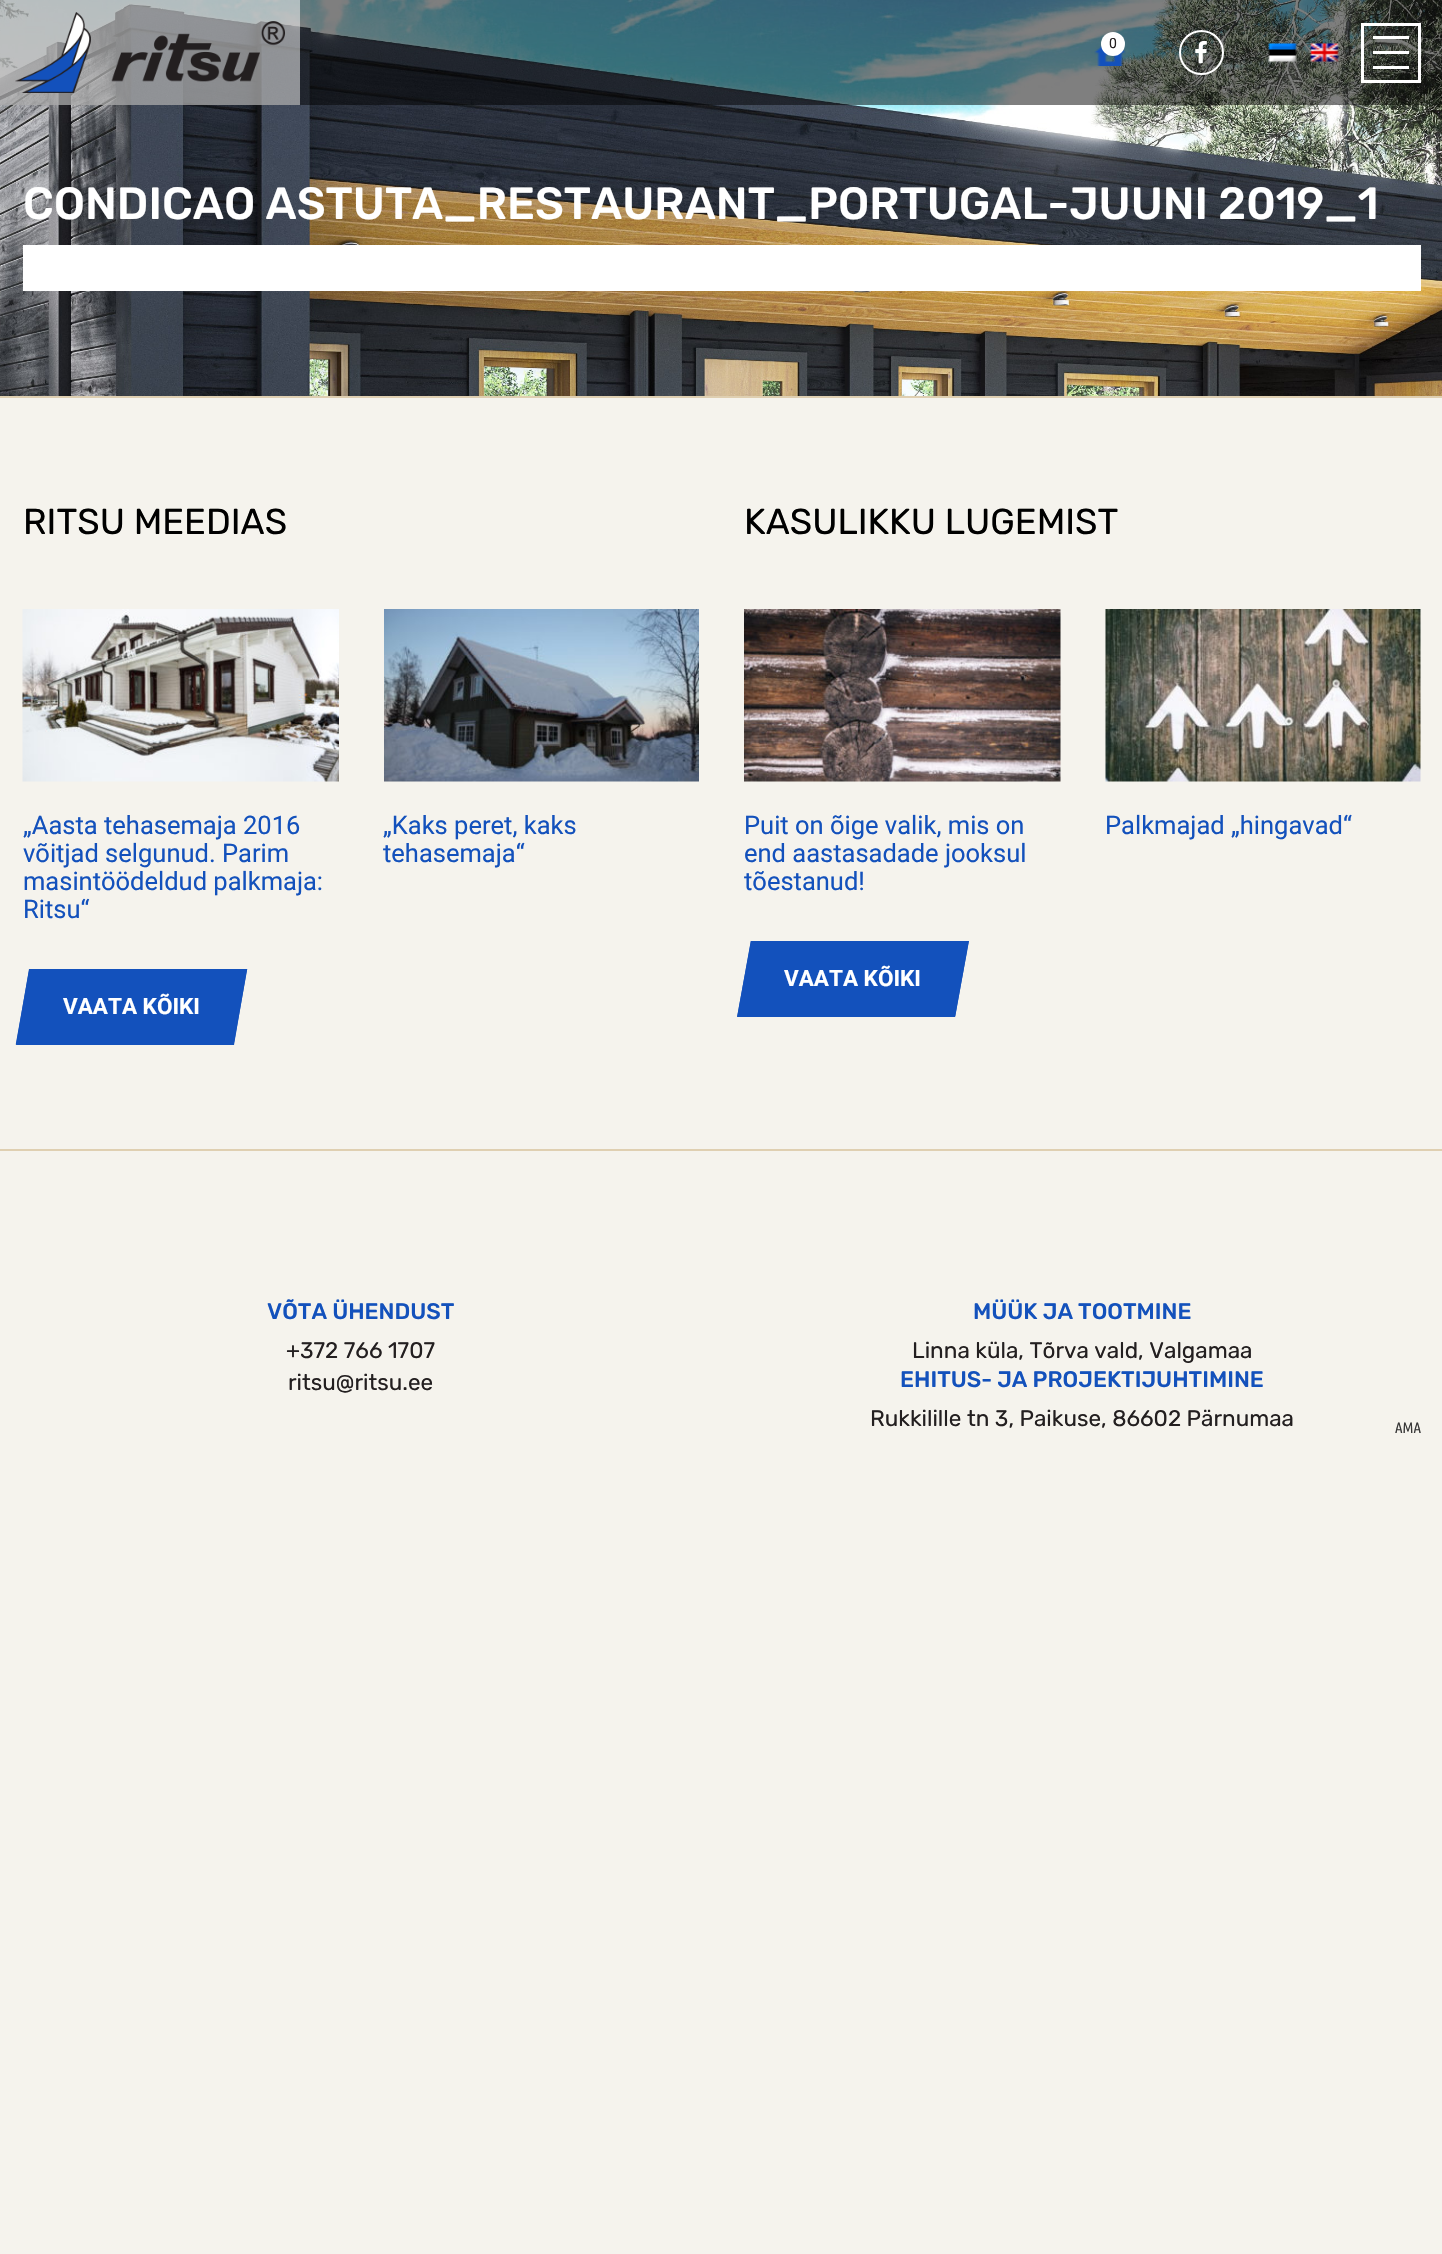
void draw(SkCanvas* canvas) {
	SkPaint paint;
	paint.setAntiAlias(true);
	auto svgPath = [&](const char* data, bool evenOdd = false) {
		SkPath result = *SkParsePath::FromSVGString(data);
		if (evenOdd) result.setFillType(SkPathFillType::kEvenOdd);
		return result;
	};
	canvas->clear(0xfff5f3ed);
	canvas->drawImageRect(SkImages::DeferredFromEncodedData(SkData::MakeFromFileName("img1.png")), SkRect::MakeXYWH(0, 0, 1442, 396), SkSamplingOptions());
	paint.setColor(0x80000000);
	canvas->drawRect(SkRect::MakeXYWH(0, 0, 1442, 105), paint);
	paint.setColor(0x80ffffff);
	canvas->drawRect(SkRect::MakeXYWH(0, 0, 300, 105), paint);
	canvas->drawImageRect(SkImages::DeferredFromEncodedData(SkData::MakeFromFileName("img2.png")), SkRect::MakeXYWH(15, 12, 270, 81), SkSamplingOptions());
	canvas->drawImageRect(SkImages::DeferredFromEncodedData(SkData::MakeFromFileName("img3.png")), SkRect::MakeXYWH(1094, 45, 32, 21), SkSamplingOptions());
	paint.setColor(0xffffffff);
	canvas->drawCircle(1113, 44, 12, paint);
	SkFont f1(fontMgr->matchFamilyStyle("Roboto", SkFontStyle::Normal()), 14);
	f1.setSubpixel(true);
	paint.setColor(0xff231f20);
	canvas->drawString("0", 1109, 48, f1, paint);
	paint.setStroke(true);
	paint.setStrokeWidth(2);
	paint.setColor(0xffffffff);
	canvas->drawCircle(1201.5, 52.5, 21.5, paint);
	canvas->drawImageRect(SkImages::DeferredFromEncodedData(SkData::MakeFromFileName("img4.png")), SkRect::MakeXYWH(1195, 40, 12, 24), SkSamplingOptions());
	canvas->drawImageRect(SkImages::DeferredFromEncodedData(SkData::MakeFromFileName("img5.png")), SkRect::MakeXYWH(1268, 43, 29, 19), SkSamplingOptions());
	canvas->drawImageRect(SkImages::DeferredFromEncodedData(SkData::MakeFromFileName("img6.png")), SkRect::MakeXYWH(1310, 43, 29, 19), SkSamplingOptions());
	paint.setStrokeWidth(3);
	canvas->drawRect(SkRect::MakeXYWH(1362.5, 24.5, 57, 57), paint);
	paint.setStroke(false);
	canvas->drawRect(SkRect::MakeXYWH(1373, 36, 36, 3), paint);
	canvas->drawRect(SkRect::MakeXYWH(1373, 51, 36, 3), paint);
	canvas->drawRect(SkRect::MakeXYWH(1373, 66, 36, 3), paint);
	SkFont f2(fontMgr->matchFamilyStyle("Rubik", SkFontStyle(500, SkFontStyle::kNormal_Width, SkFontStyle::kUpright_Slant)), 45);
	f2.setSubpixel(true);
	canvas->drawString("CONDICAO ASTUTA_RESTAURANT_PORTUGAL-JUUNI 2019_1", 23, 219, f2, paint);
	canvas->drawRect(SkRect::MakeXYWH(23, 245, 1398, 46), paint);
	paint.setColor(0xffdfcfb1);
	canvas->drawRect(SkRect::MakeXYWH(0, 396, 1442, 2), paint);
	SkFont f3(fontMgr->matchFamilyStyle("Rubik", SkFontStyle::Normal()), 36);
	f3.setSubpixel(true);
	paint.setColor(0xff000000);
	canvas->drawString("RITSU MEEDIAS", 23, 534, f3, paint);
	canvas->drawImageRect(SkImages::DeferredFromEncodedData(SkData::MakeFromFileName("img7.png")), SkRect::MakeXYWH(22, 609, 317, 173), SkSamplingOptions());
	SkFont f4(fontMgr->matchFamilyStyle("Roboto", SkFontStyle::Normal()), 25.5);
	f4.setSubpixel(true);
	paint.setColor(0xff1351bc);
	canvas->drawString("„Aasta tehasemaja 2016", 23, 834, f4, paint);
	canvas->drawString("võitjad selgunud. Parim", 23, 862, f4, paint);
	canvas->drawString("masintöödeldud palkmaja:", 23, 890, f4, paint);
	canvas->drawString("Ritsu“", 23, 918, f4, paint);
	canvas->drawImageRect(SkImages::DeferredFromEncodedData(SkData::MakeFromFileName("img8.png")), SkRect::MakeXYWH(384, 609, 315, 173), SkSamplingOptions());
	canvas->drawString("„Kaks peret, kaks", 383, 834, f4, paint);
	canvas->drawString("tehasemaja“", 383, 862, f4, paint);
	canvas->drawPath(svgPath("M29 969H247L234 1045H16Z"), paint);
	paint.setStroke(true);
	canvas->drawPath(svgPath("M30.5 970.5H245.5L232.5 1043H17.5Z"), paint);
	SkFont f5(fontMgr->matchFamilyStyle("Roboto", SkFontStyle::Bold()), 22.5);
	f5.setSubpixel(true);
	paint.setStroke(false);
	paint.setColor(0xffffffff);
	canvas->drawString("VAATA KÕIKI", 63, 1014, f5, paint);
	paint.setColor(0xff000000);
	canvas->drawString("KASULIKKU LUGEMIST", 744, 534, f3, paint);
	canvas->drawImageRect(SkImages::DeferredFromEncodedData(SkData::MakeFromFileName("img9.png")), SkRect::MakeXYWH(744, 609, 317, 173), SkSamplingOptions());
	paint.setColor(0xff1351bc);
	canvas->drawString("Puit on õige valik, mis on", 744, 834, f4, paint);
	canvas->drawString("end aastasadade jooksul", 744, 862, f4, paint);
	canvas->drawString("tõestanud!", 744, 890, f4, paint);
	canvas->drawImageRect(SkImages::DeferredFromEncodedData(SkData::MakeFromFileName("img10.png")), SkRect::MakeXYWH(1105, 609, 316, 173), SkSamplingOptions());
	canvas->drawString("Palkmajad „hingavad“", 1105, 834, f4, paint);
	canvas->drawPath(svgPath("M751 941H969L955 1017H737Z"), paint);
	paint.setStroke(true);
	canvas->drawPath(svgPath("M752 942.5H967L954 1015H739Z"), paint);
	paint.setStroke(false);
	paint.setColor(0xffffffff);
	canvas->drawString("VAATA KÕIKI", 784, 986, f5, paint);
	paint.setColor(0xffdfcfb1);
	canvas->drawRect(SkRect::MakeXYWH(0, 1149, 1442, 2), paint);
	SkFont f6(fontMgr->matchFamilyStyle("Rubik", SkFontStyle(500, SkFontStyle::kNormal_Width, SkFontStyle::kUpright_Slant)), 22.5);
	f6.setSubpixel(true);
	paint.setColor(0xff1351bc);
	canvas->drawString("VÕTA ÜHENDUST", 267, 1319, f6, paint);
	SkFont f7(fontMgr->matchFamilyStyle("Rubik", SkFontStyle::Normal()), 22.5);
	f7.setSubpixel(true);
	paint.setColor(0xff231f20);
	canvas->drawString("+372 766 1707", 286, 1358, f7, paint);
	canvas->drawString("ritsu@ritsu.ee", 288, 1390, f7, paint);
	paint.setColor(0xff1351bc);
	canvas->drawString("MÜÜK JA TOOTMINE", 973, 1319, f6, paint);
	paint.setColor(0xff231f20);
	canvas->drawString("Linna küla, Tõrva vald, Valgamaa", 912, 1358, f7, paint);
	paint.setColor(0xff1351bc);
	canvas->drawString("EHITUS- JA PROJEKTIJUHTIMINE", 900, 1387, f6, paint);
	paint.setColor(0xff231f20);
	canvas->drawString("Rukkilille tn 3, Paikuse, 86602 Pärnumaa", 870, 1426, f7, paint);
	SkFont f8(fontMgr->matchFamilyStyle("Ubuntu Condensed", SkFontStyle::Normal()), 15);
	f8.setSubpixel(true);
	paint.setColor(0xff373737);
	canvas->drawString("AMA", 1395, 1433, f8, paint);
}
